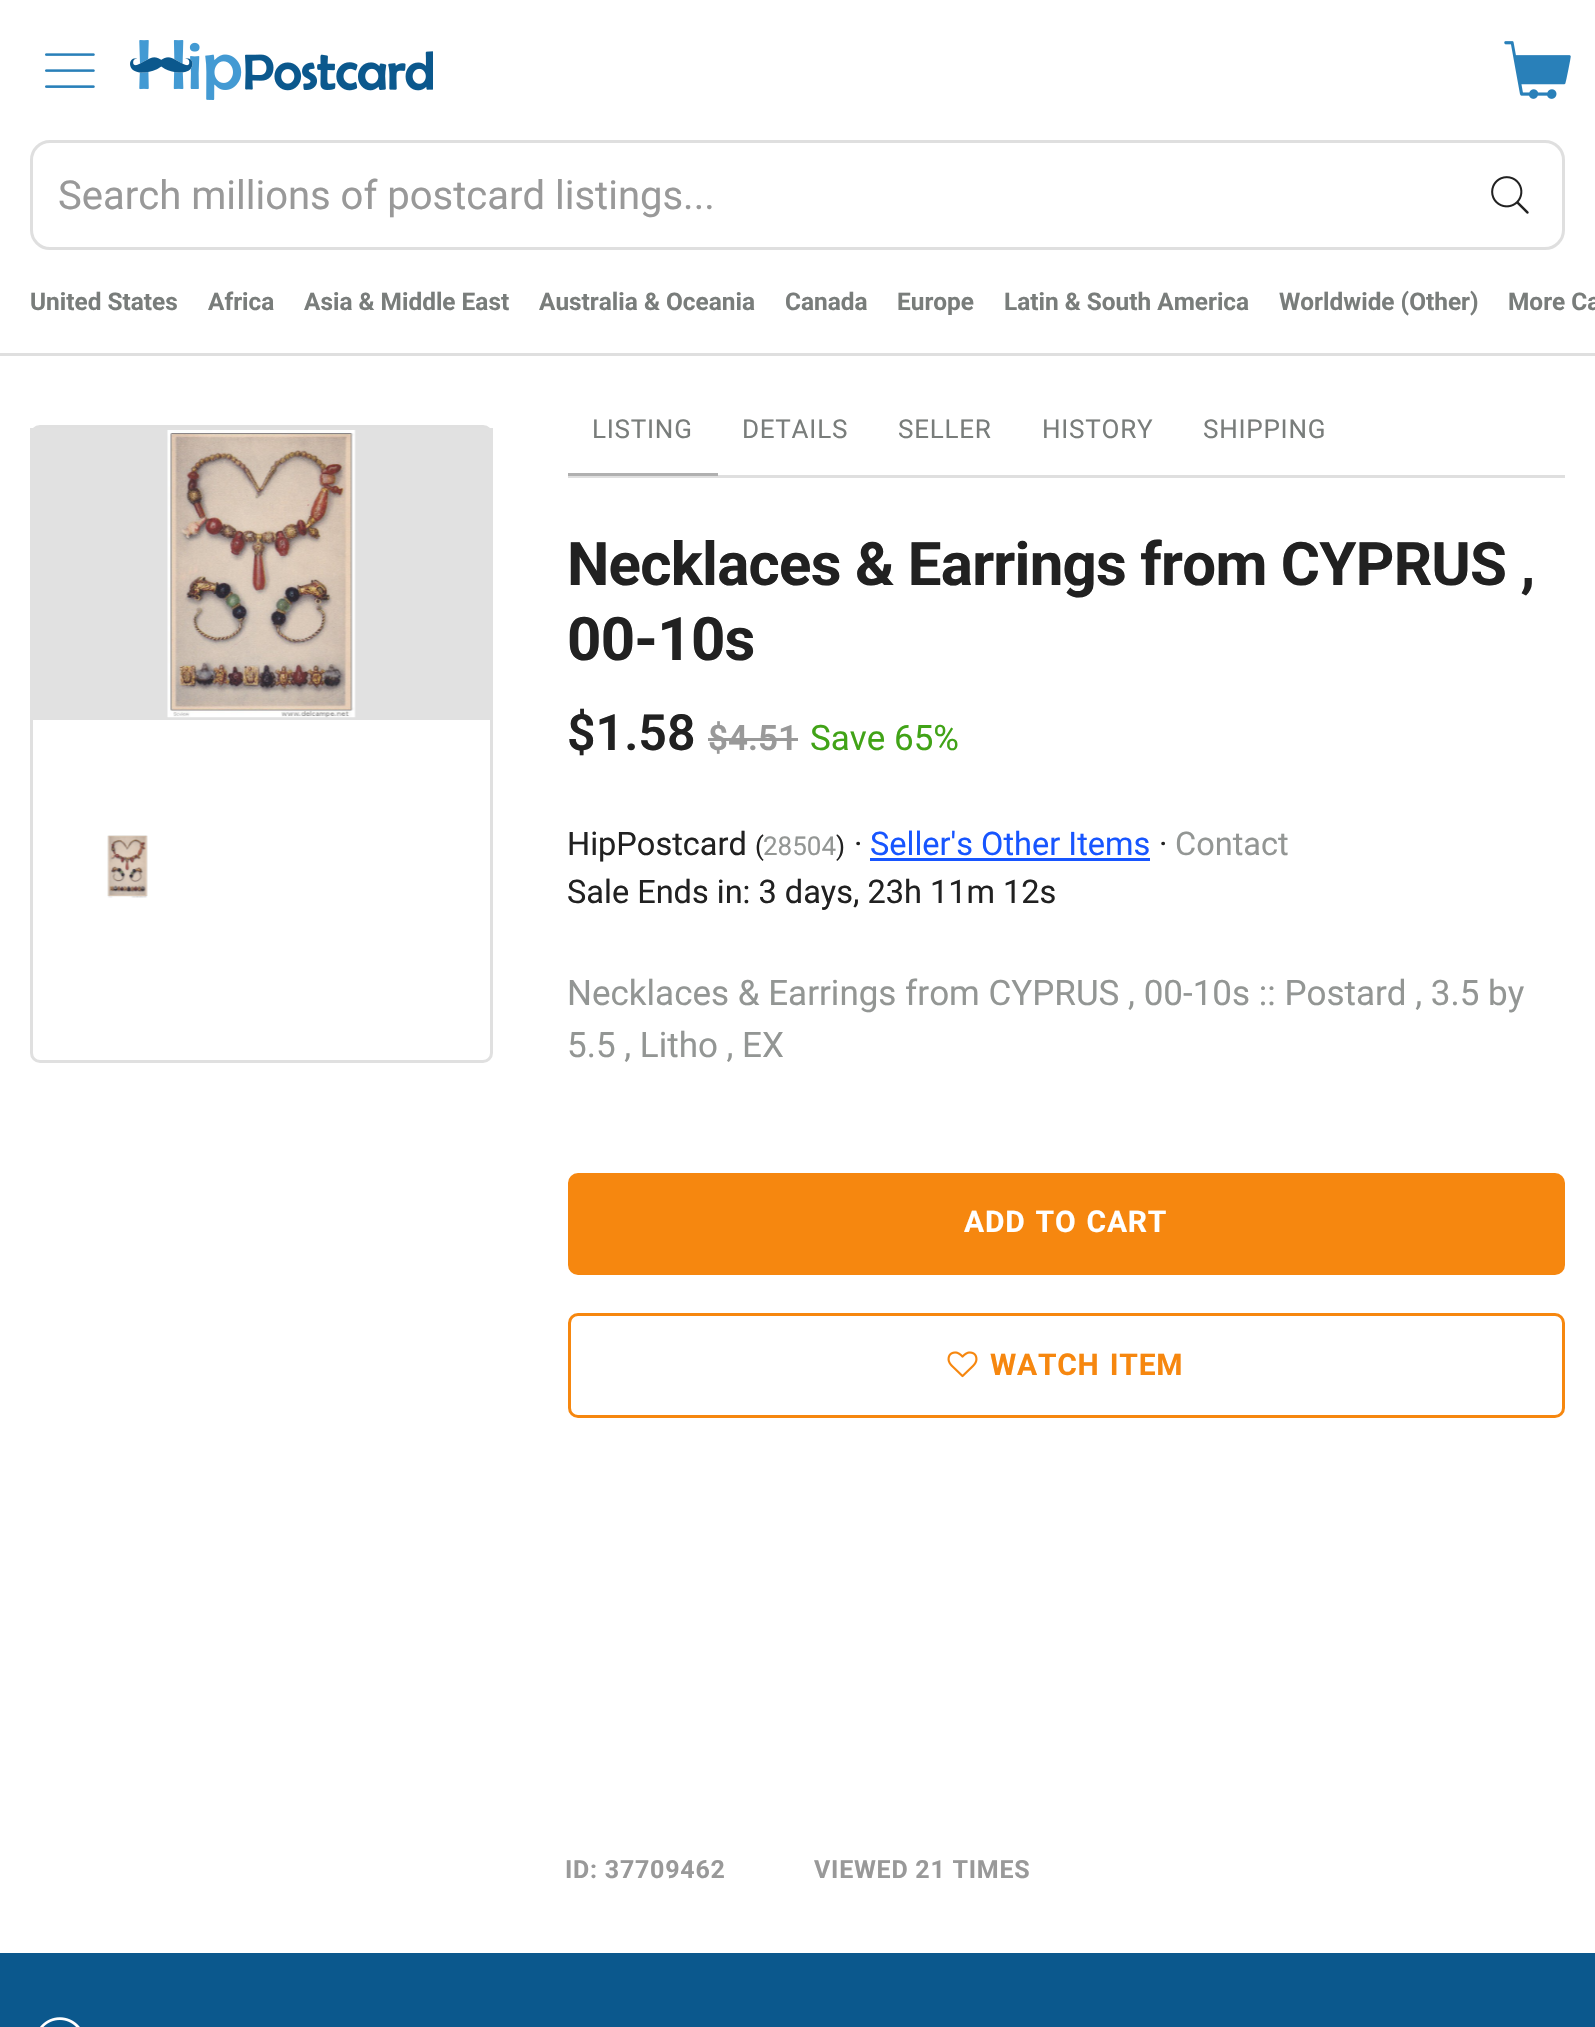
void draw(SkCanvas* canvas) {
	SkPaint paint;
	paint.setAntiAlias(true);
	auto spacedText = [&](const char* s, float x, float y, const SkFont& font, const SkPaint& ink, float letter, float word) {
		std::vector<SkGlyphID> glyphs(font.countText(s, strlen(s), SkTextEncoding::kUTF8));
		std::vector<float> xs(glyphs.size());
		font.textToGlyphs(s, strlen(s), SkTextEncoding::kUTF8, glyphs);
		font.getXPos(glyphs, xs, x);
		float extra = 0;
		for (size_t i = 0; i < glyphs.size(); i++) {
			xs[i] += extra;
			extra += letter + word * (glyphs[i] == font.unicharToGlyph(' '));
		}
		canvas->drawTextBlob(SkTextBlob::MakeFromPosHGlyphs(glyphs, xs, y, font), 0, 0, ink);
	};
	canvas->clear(0xffffffff);
	canvas->drawImageRect(SkImages::DeferredFromEncodedData(SkData::MakeFromFileName("img1.png")), SkRect::MakeXYWH(45, 53, 50, 35), SkSamplingOptions());
	canvas->drawImageRect(SkImages::DeferredFromEncodedData(SkData::MakeFromFileName("img2.png")), SkRect::MakeXYWH(130, 40, 303, 60), SkSamplingOptions());
	canvas->drawImageRect(SkImages::DeferredFromEncodedData(SkData::MakeFromFileName("img3.png")), SkRect::MakeXYWH(1504, 41, 67, 58), SkSamplingOptions());
	paint.setStroke(true);
	paint.setStrokeWidth(3);
	paint.setColor(0xffdfdfdf);
	canvas->drawRoundRect(SkRect::MakeXYWH(31.5, 141.5, 1532, 107), 18.5, 18.5, paint);
	SkFont f1(fontMgr->matchFamilyStyle("Roboto", SkFontStyle::Normal()), 40);
	f1.setSubpixel(true);
	paint.setStroke(false);
	paint.setColor(0xff999999);
	canvas->drawString("Search millions of postcard listings...", 58, 209, f1, paint);
	canvas->drawImageRect(SkImages::DeferredFromEncodedData(SkData::MakeFromFileName("img4.png")), SkRect::MakeXYWH(1491, 176, 38, 38), SkSamplingOptions());
	paint.setColor(0xffdfdfdf);
	canvas->drawRect(SkRect::MakeXYWH(0, 353, 1595, 3), paint);
	SkFont f2(fontMgr->matchFamilyStyle("Roboto", SkFontStyle::Bold()), 24.4);
	f2.setSubpixel(true);
	paint.setColor(0xff797d7b);
	canvas->drawString("United States", 30, 310, f2, paint);
	canvas->drawString("Africa", 208, 310, f2, paint);
	canvas->drawString("Asia & Middle East", 304, 310, f2, paint);
	canvas->drawString("Australia & Oceania", 539, 310, f2, paint);
	canvas->drawString("Canada", 785, 310, f2, paint);
	canvas->drawString("Europe", 897, 310, f2, paint);
	canvas->drawString("Latin & South America", 1004, 310, f2, paint);
	canvas->drawString("Worldwide (Other)", 1279, 310, f2, paint);
	canvas->drawString("More Ca", 1508, 310, f2, paint);
	paint.setStroke(true);
	paint.setColor(0xffe0e0e0);
	canvas->drawRoundRect(SkRect::MakeXYWH(31.5, 426.5, 460, 635), 8.5, 8.5, paint);
	paint.setStroke(false);
	paint.setColor(0xffe1e1e1);
	canvas->drawRect(SkRect::MakeXYWH(30, 428, 463, 292), paint);
	canvas->drawImageRect(SkImages::DeferredFromEncodedData(SkData::MakeFromFileName("img5.png")), SkRect::MakeXYWH(167, 430, 189, 288), SkSamplingOptions());
	canvas->drawImageRect(SkImages::DeferredFromEncodedData(SkData::MakeFromFileName("img6.png")), SkRect::MakeXYWH(107, 835, 41, 63), SkSamplingOptions());
	paint.setColor(0xffdfdfdf);
	canvas->drawRect(SkRect::MakeXYWH(568, 475, 997, 3), paint);
	paint.setColor(0xffb0b0b0);
	canvas->drawRect(SkRect::MakeXYWH(568, 473, 150, 3), paint);
	SkFont f3(fontMgr->matchFamilyStyle("Roboto", SkFontStyle::Normal()), 26);
	f3.setSubpixel(true);
	paint.setColor(0xff797d7b);
	spacedText("LISTING", 592, 438, f3, paint, 0.75, 0);
	spacedText("DETAILS", 742, 438, f3, paint, 0.75, 0);
	spacedText("SELLER", 898, 438, f3, paint, 0.75, 0);
	spacedText("HISTORY", 1042, 438, f3, paint, 0.75, 0);
	spacedText("SHIPPING", 1203, 438, f3, paint, 0.75, 0);
	SkFont f4(fontMgr->matchFamilyStyle("Roboto", SkFontStyle::Bold()), 60);
	f4.setSubpixel(true);
	paint.setColor(0xff212121);
	spacedText("Necklaces & Earrings from CYPRUS ,", 567, 585, f4, paint, -0.75, 0);
	spacedText("00-10s", 567, 660, f4, paint, -0.75, 0);
	SkFont f5(fontMgr->matchFamilyStyle("Roboto", SkFontStyle(600, SkFontStyle::kNormal_Width, SkFontStyle::kUpright_Slant)), 50);
	f5.setSubpixel(true);
	canvas->drawString("$1.58", 567, 750, f5, paint);
	SkFont f6(fontMgr->matchFamilyStyle("Roboto", SkFontStyle(600, SkFontStyle::kNormal_Width, SkFontStyle::kUpright_Slant)), 35);
	f6.setSubpixel(true);
	paint.setColor(0xff999999);
	canvas->drawString("$4.51", 708, 750, f6, paint);
	canvas->drawRect(SkRect::MakeXYWH(708, 738, 90, 3), paint);
	SkFont f7(fontMgr->matchFamilyStyle("Roboto", SkFontStyle::Normal()), 35);
	f7.setSubpixel(true);
	paint.setColor(0xff41a317);
	canvas->drawString("Save 65%", 810, 750, f7, paint);
	SkFont f8(fontMgr->matchFamilyStyle("Roboto", SkFontStyle::Normal()), 32.5);
	f8.setSubpixel(true);
	paint.setColor(0xff212121);
	canvas->drawString("HipPostcard", 567, 855, f8, paint);
	canvas->drawString("(", 755, 855, f3, paint);
	paint.setColor(0xff939694);
	canvas->drawString("28504", 763, 855, f3, paint);
	paint.setColor(0xff212121);
	canvas->drawString(")", 836, 855, f3, paint);
	canvas->drawString("·", 854, 855, f8, paint);
	paint.setColor(0xff1755ff);
	canvas->drawString("Seller's Other Items", 870, 855, f8, paint);
	canvas->drawRect(SkRect::MakeXYWH(870, 858, 280, 3), paint);
	paint.setColor(0xff212121);
	canvas->drawString("·", 1159, 855, f8, paint);
	paint.setColor(0xff939694);
	canvas->drawString("Contact", 1175, 855, f8, paint);
	paint.setColor(0xff212121);
	canvas->drawString("Sale Ends in: 3 days, 23h 11m 12s", 567, 903, f8, paint);
	paint.setColor(0xff939694);
	canvas->drawString("Necklaces & Earrings from CYPRUS , 00-10s :: Postard , 3.5 by", 567, 1005, f7, paint);
	canvas->drawString("5.5 , Litho , EX", 567, 1057, f7, paint);
	paint.setColor(0xfff6870f);
	canvas->drawRoundRect(SkRect::MakeXYWH(569.5, 1174.5, 994, 99), 8.5, 8.5, paint);
	paint.setStroke(true);
	canvas->drawRoundRect(SkRect::MakeXYWH(569.5, 1174.5, 994, 99), 8.5, 8.5, paint);
	SkFont f9(fontMgr->matchFamilyStyle("Roboto", SkFontStyle::Bold()), 30);
	f9.setSubpixel(true);
	paint.setStroke(false);
	paint.setColor(0xffffffff);
	spacedText("ADD TO CART", 964, 1232, f9, paint, 0.75, 2);
	paint.setStroke(true);
	paint.setColor(0xfff6870f);
	canvas->drawRoundRect(SkRect::MakeXYWH(569.5, 1314.5, 994, 102), 8.5, 8.5, paint);
	canvas->drawImageRect(SkImages::DeferredFromEncodedData(SkData::MakeFromFileName("img7.png")), SkRect::MakeXYWH(947, 1351, 31, 27), SkSamplingOptions());
	paint.setStroke(false);
	spacedText("WATCH ITEM", 990, 1375, f9, paint, 0.75, 2);
	SkFont f10(fontMgr->matchFamilyStyle("Roboto", SkFontStyle::Bold()), 25);
	f10.setSubpixel(true);
	paint.setColor(0xff999999);
	spacedText("ID: 37709462", 565, 1878, f10, paint, 0.75, 0);
	spacedText("VIEWED 21 TIMES", 814, 1878, f10, paint, 0.75, 0);
	paint.setColor(0xff0b588d);
	canvas->drawRect(SkRect::MakeXYWH(0, 1953, 1595, 74), paint);
	canvas->drawImageRect(SkImages::DeferredFromEncodedData(SkData::MakeFromFileName("img8.png")), SkRect::MakeXYWH(40, 2017, 40, 10), SkSamplingOptions());
}
